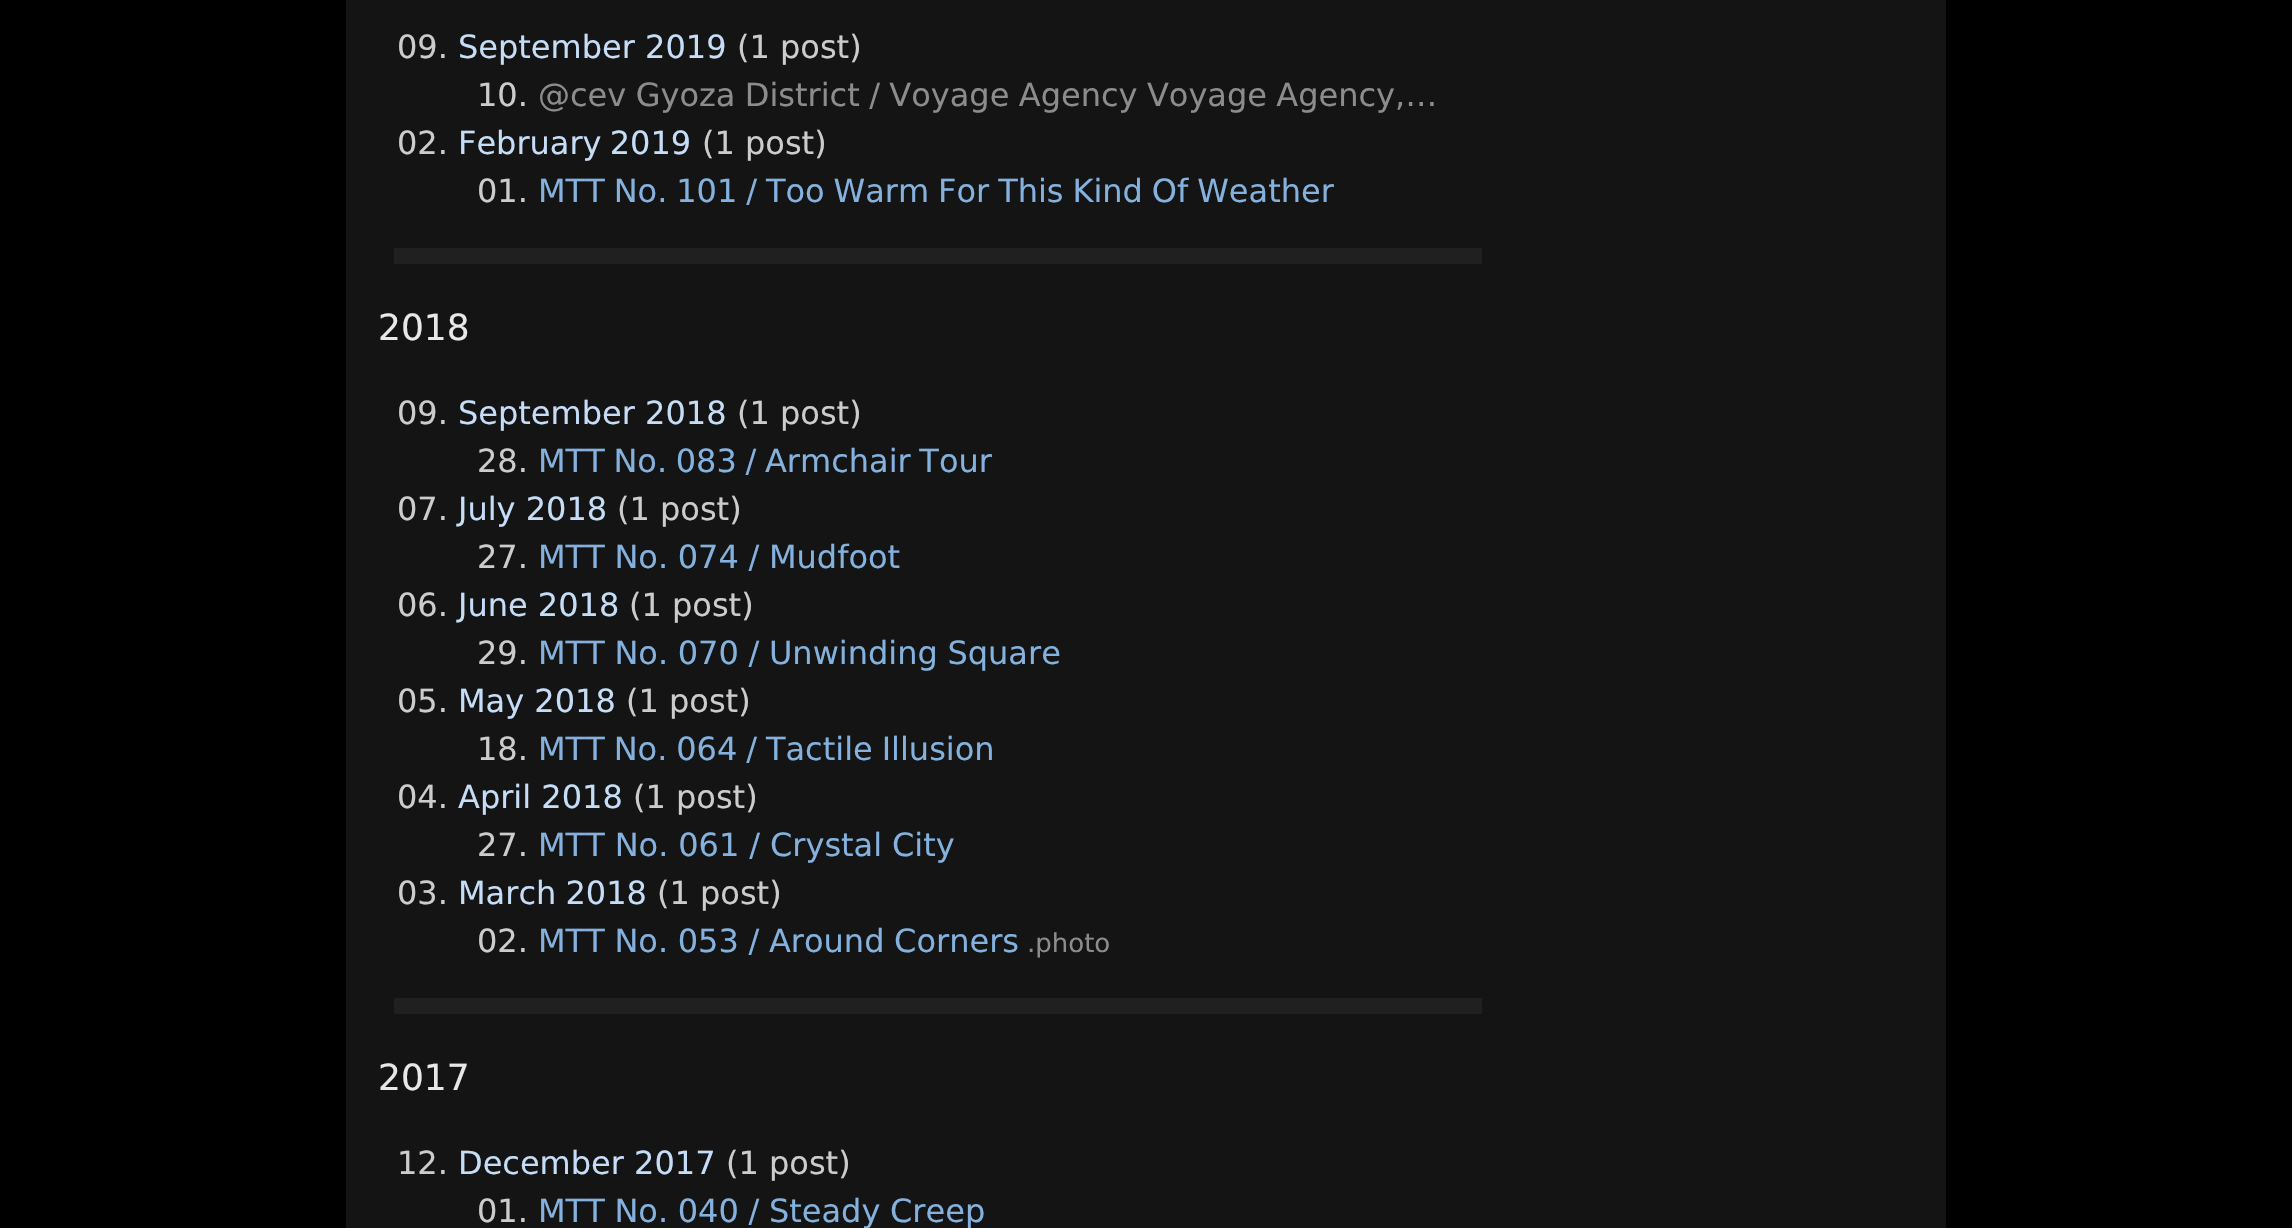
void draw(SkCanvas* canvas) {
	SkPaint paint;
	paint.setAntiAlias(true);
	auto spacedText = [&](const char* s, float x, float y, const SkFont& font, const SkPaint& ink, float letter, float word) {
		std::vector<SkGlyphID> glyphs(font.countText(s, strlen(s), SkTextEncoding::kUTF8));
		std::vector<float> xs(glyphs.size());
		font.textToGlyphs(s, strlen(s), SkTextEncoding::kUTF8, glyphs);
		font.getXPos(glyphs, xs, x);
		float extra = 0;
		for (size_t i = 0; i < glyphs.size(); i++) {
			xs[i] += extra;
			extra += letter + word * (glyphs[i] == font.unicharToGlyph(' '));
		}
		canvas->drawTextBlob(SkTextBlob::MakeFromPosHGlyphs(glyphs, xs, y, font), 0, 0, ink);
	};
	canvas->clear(0xff000000);
	paint.setColor(0xff141414);
	canvas->drawRect(SkRect::MakeXYWH(346, 0, 1600, 1228), paint);
	SkFont f1(fontMgr->matchFamilyStyle("DejaVu Sans", SkFontStyle::Normal()), 32);
	f1.setSubpixel(true);
	paint.setColor(0xffcccccc);
	canvas->drawString("09.", 397, 58, f1, paint);
	paint.setColor(0xffc6ddf7);
	canvas->drawString("September 2019", 458, 58, f1, paint);
	paint.setColor(0xffcccccc);
	canvas->drawString("(1 post)", 737, 58, f1, paint);
	canvas->drawString("10.", 477, 106, f1, paint);
	paint.setColor(0xff8c8c8c);
	spacedText("@cev Gyoza District / Voyage Agency Voyage Agency,…", 538, 106, f1, paint, 0, -0.75);
	paint.setColor(0xffcccccc);
	canvas->drawString("02.", 397, 154, f1, paint);
	paint.setColor(0xffc6ddf7);
	spacedText("February 2019", 458, 154, f1, paint, 0, -2);
	paint.setColor(0xffcccccc);
	canvas->drawString("(1 post)", 702, 154, f1, paint);
	canvas->drawString("01.", 477, 202, f1, paint);
	paint.setColor(0xff84b1dd);
	spacedText("MTT No. 101 / Too Warm For This Kind Of Weather", 538, 202, f1, paint, 0, -1.25);
	paint.setColor(0xff202020);
	canvas->drawRect(SkRect::MakeXYWH(394, 248, 1088, 16), paint);
	SkFont f2(fontMgr->matchFamilyStyle("DejaVu Sans", SkFontStyle::Normal()), 36);
	f2.setSubpixel(true);
	paint.setColor(0xffe8e8e8);
	canvas->drawString("2018", 378, 340, f2, paint);
	paint.setColor(0xffcccccc);
	canvas->drawString("09.", 397, 424, f1, paint);
	paint.setColor(0xffc6ddf7);
	canvas->drawString("September 2018", 458, 424, f1, paint);
	paint.setColor(0xffcccccc);
	canvas->drawString("(1 post)", 737, 424, f1, paint);
	canvas->drawString("28.", 477, 472, f1, paint);
	paint.setColor(0xff84b1dd);
	spacedText("MTT No. 083 / Armchair Tour", 538, 472, f1, paint, 0, -1.5);
	paint.setColor(0xffcccccc);
	canvas->drawString("07.", 397, 520, f1, paint);
	paint.setColor(0xffc6ddf7);
	canvas->drawString("July 2018", 458, 520, f1, paint);
	paint.setColor(0xffcccccc);
	canvas->drawString("(1 post)", 617, 520, f1, paint);
	canvas->drawString("27.", 477, 568, f1, paint);
	paint.setColor(0xff84b1dd);
	spacedText("MTT No. 074 / Mudfoot", 538, 568, f1, paint, 0, -0.5);
	paint.setColor(0xffcccccc);
	canvas->drawString("06.", 397, 616, f1, paint);
	paint.setColor(0xffc6ddf7);
	canvas->drawString("June 2018", 458, 616, f1, paint);
	paint.setColor(0xffcccccc);
	canvas->drawString("(1 post)", 629, 616, f1, paint);
	canvas->drawString("29.", 477, 664, f1, paint);
	paint.setColor(0xff84b1dd);
	spacedText("MTT No. 070 / Unwinding Square", 538, 664, f1, paint, 0, -0.5);
	paint.setColor(0xffcccccc);
	canvas->drawString("05.", 397, 712, f1, paint);
	paint.setColor(0xffc6ddf7);
	canvas->drawString("May 2018", 458, 712, f1, paint);
	paint.setColor(0xffcccccc);
	canvas->drawString("(1 post)", 626, 712, f1, paint);
	canvas->drawString("18.", 477, 760, f1, paint);
	paint.setColor(0xff84b1dd);
	spacedText("MTT No. 064 / Tactile Illusion", 538, 760, f1, paint, 0, -1.25);
	paint.setColor(0xffcccccc);
	canvas->drawString("04.", 397, 808, f1, paint);
	paint.setColor(0xffc6ddf7);
	canvas->drawString("April 2018", 458, 808, f1, paint);
	paint.setColor(0xffcccccc);
	canvas->drawString("(1 post)", 633, 808, f1, paint);
	canvas->drawString("27.", 477, 856, f1, paint);
	paint.setColor(0xff84b1dd);
	spacedText("MTT No. 061 / Crystal City", 538, 856, f1, paint, 0, -0.25);
	paint.setColor(0xffcccccc);
	canvas->drawString("03.", 397, 904, f1, paint);
	paint.setColor(0xffc6ddf7);
	spacedText("March 2018", 458, 904, f1, paint, 0, -1);
	paint.setColor(0xffcccccc);
	canvas->drawString("(1 post)", 657, 904, f1, paint);
	canvas->drawString("02.", 477, 952, f1, paint);
	paint.setColor(0xff84b1dd);
	spacedText("MTT No. 053 / Around Corners", 538, 952, f1, paint, 0, -0.5);
	SkFont f3(fontMgr->matchFamilyStyle("DejaVu Sans", SkFontStyle::Normal()), 26);
	f3.setSubpixel(true);
	paint.setColor(0xff8c8c8c);
	canvas->drawString(".photo", 1027, 952, f3, paint);
	paint.setColor(0xff202020);
	canvas->drawRect(SkRect::MakeXYWH(394, 998, 1088, 16), paint);
	paint.setColor(0xffe8e8e8);
	canvas->drawString("2017", 378, 1090, f2, paint);
	paint.setColor(0xffcccccc);
	canvas->drawString("12.", 397, 1174, f1, paint);
	paint.setColor(0xffc6ddf7);
	canvas->drawString("December 2017", 458, 1174, f1, paint);
	paint.setColor(0xffcccccc);
	canvas->drawString("(1 post)", 726, 1174, f1, paint);
	canvas->drawString("01.", 477, 1222, f1, paint);
	paint.setColor(0xff84b1dd);
	spacedText("MTT No. 040 / Steady Creep", 538, 1222, f1, paint, 0, -0.5);
}
